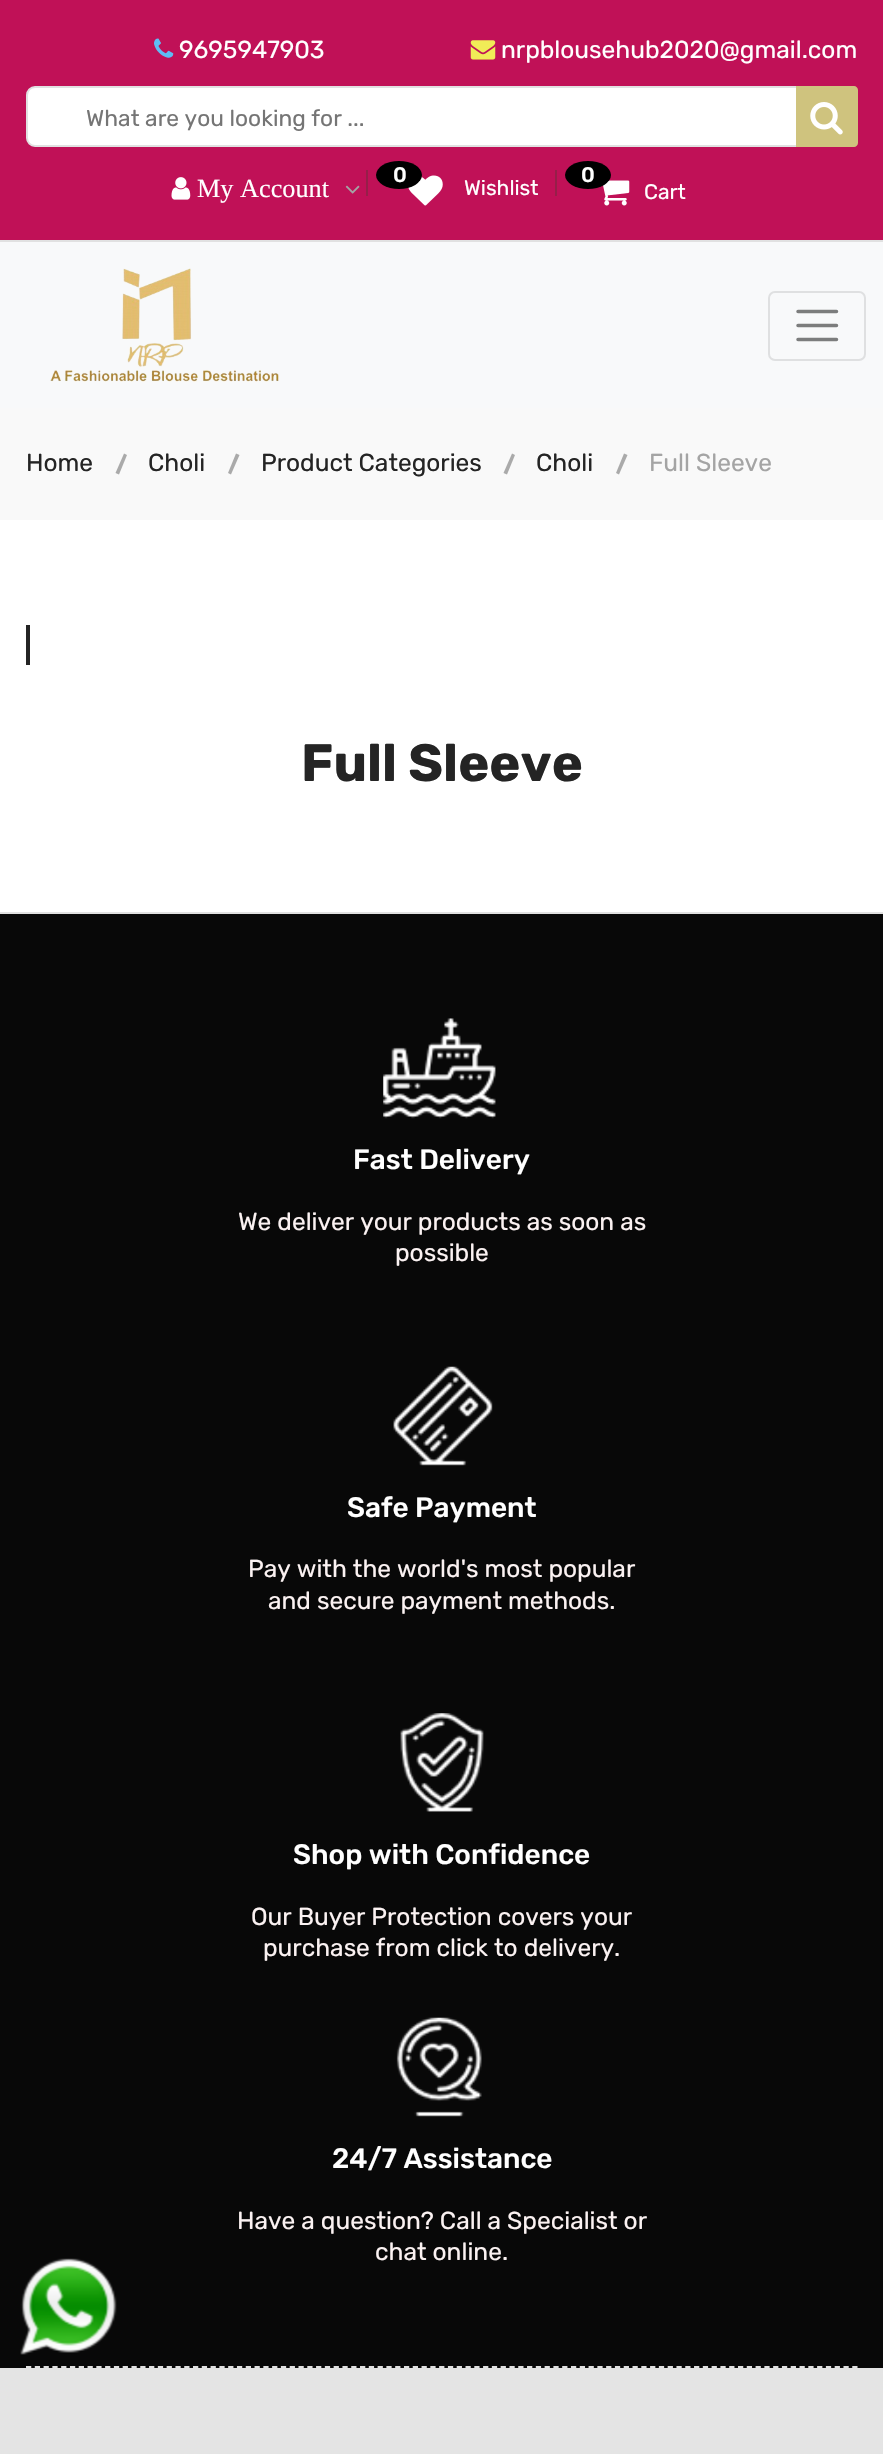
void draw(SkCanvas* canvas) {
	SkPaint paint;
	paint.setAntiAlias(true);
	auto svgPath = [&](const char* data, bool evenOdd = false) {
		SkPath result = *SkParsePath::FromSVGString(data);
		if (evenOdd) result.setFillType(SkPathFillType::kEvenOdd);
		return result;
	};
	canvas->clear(0xffffffff);
	paint.setColor(0xffc01157);
	canvas->drawRect(SkRect::MakeXYWH(0, 0, 883, 240), paint);
	paint.setColor(0xffe1e1e1);
	canvas->drawRect(SkRect::MakeXYWH(0, 240, 883, 2), paint);
	canvas->drawImageRect(SkImages::DeferredFromEncodedData(SkData::MakeFromFileName("img1.png")), SkRect::MakeXYWH(154, 38, 20, 20), SkSamplingOptions());
	SkFont f1(fontMgr->matchFamilyStyle("Rubik", SkFontStyle::Normal()), 24.5);
	f1.setSubpixel(true);
	paint.setColor(0xffffffff);
	canvas->drawString("9695947903", 179, 58, f1, paint);
	canvas->drawImageRect(SkImages::DeferredFromEncodedData(SkData::MakeFromFileName("img2.png")), SkRect::MakeXYWH(470, 40, 26, 20), SkSamplingOptions());
	canvas->drawString("nrpblousehub2020@gmail.com", 501, 58, f1, paint);
	canvas->drawRoundRect(SkRect::MakeXYWH(27, 87, 830, 59), 8, 8, paint);
	paint.setStroke(true);
	paint.setStrokeWidth(2);
	paint.setColor(0xffe1e1e1);
	canvas->drawRoundRect(SkRect::MakeXYWH(27, 87, 830, 59), 8, 8, paint);
	SkFont f2(fontMgr->matchFamilyStyle("Rubik", SkFontStyle::Normal()), 22.75);
	f2.setSubpixel(true);
	paint.setStroke(false);
	paint.setColor(0xff757575);
	canvas->drawString("What are you looking for ...", 86, 126, f2, paint);
	paint.setColor(0xffcfc37e);
	canvas->drawPath(svgPath("M796 86H854C856 86 858 88 858 90V143C858 145 856 147 854 147H796Z"), paint);
	canvas->drawImageRect(SkImages::DeferredFromEncodedData(SkData::MakeFromFileName("img3.png")), SkRect::MakeXYWH(810, 102, 33, 33), SkSamplingOptions());
	canvas->drawImageRect(SkImages::DeferredFromEncodedData(SkData::MakeFromFileName("img4.png")), SkRect::MakeXYWH(171, 177, 20, 23), SkSamplingOptions());
	SkFont f3(fontMgr->matchFamilyStyle("Liberation Serif", SkFontStyle::Normal()), 26.25);
	f3.setSubpixel(true);
	paint.setColor(0xffffffff);
	canvas->drawString("My Account", 197, 197, f3, paint);
	canvas->drawImageRect(SkImages::DeferredFromEncodedData(SkData::MakeFromFileName("img5.png")), SkRect::MakeXYWH(345, 185, 15, 9), SkSamplingOptions());
	paint.setColor(0xff961f49);
	canvas->drawRect(SkRect::MakeXYWH(366, 170, 2, 26), paint);
	canvas->drawImageRect(SkImages::DeferredFromEncodedData(SkData::MakeFromFileName("img6.png")), SkRect::MakeXYWH(408, 175, 35, 31), SkSamplingOptions());
	paint.setColor(0xff000000);
	canvas->drawOval(SkRect::MakeXYWH(376, 161, 46, 28), paint);
	SkFont f4(fontMgr->matchFamilyStyle("Rubik", SkFontStyle(500, SkFontStyle::kNormal_Width, SkFontStyle::kUpright_Slant)), 21);
	f4.setSubpixel(true);
	paint.setColor(0xffffffff);
	canvas->drawString("0", 393, 182, f4, paint);
	SkFont f5(fontMgr->matchFamilyStyle("Rubik", SkFontStyle::Normal()), 21);
	f5.setSubpixel(true);
	canvas->drawString("Wishlist", 464, 195, f5, paint);
	paint.setColor(0xff961f49);
	canvas->drawRect(SkRect::MakeXYWH(555, 170, 2, 26), paint);
	canvas->drawImageRect(SkImages::DeferredFromEncodedData(SkData::MakeFromFileName("img7.png")), SkRect::MakeXYWH(603, 180, 27, 26), SkSamplingOptions());
	paint.setColor(0xff000000);
	canvas->drawOval(SkRect::MakeXYWH(565, 161, 46, 28), paint);
	paint.setColor(0xffffffff);
	canvas->drawString("0", 581, 182, f4, paint);
	canvas->drawString("Cart", 644, 199, f5, paint);
	paint.setColor(0xfff8f9fa);
	canvas->drawRect(SkRect::MakeXYWH(0, 242, 883, 166), paint);
	canvas->drawImageRect(SkImages::DeferredFromEncodedData(SkData::MakeFromFileName("img8.png")), SkRect::MakeXYWH(50, 268, 229, 114), SkSamplingOptions());
	paint.setStroke(true);
	paint.setColor(0xffdfe0e1);
	canvas->drawRoundRect(SkRect::MakeXYWH(769, 292, 96, 68), 6, 6, paint);
	paint.setStrokeWidth(3.5);
	paint.setStrokeCap(SkPaint::kRound_Cap);
	paint.setColor(0xff7c7d7d);
	canvas->drawPath(svgPath("M798 311.5H836.5M798 325.5H836.5M798 339.5H836.5"), paint);
	paint.setStroke(false);
	paint.setColor(0xfff9f9f9);
	canvas->drawRect(SkRect::MakeXYWH(0, 408, 883, 112), paint);
	paint.setColor(0xff242424);
	canvas->drawString("Home", 26, 471, f1, paint);
	paint.setColor(0xffaaaaaa);
	canvas->drawPath(svgPath("M115.5 473L124 453.5L127 455L119 474.5Z"), paint);
	paint.setColor(0xff242424);
	canvas->drawString("Choli", 148, 471, f1, paint);
	paint.setColor(0xffaaaaaa);
	canvas->drawPath(svgPath("M228 473L236 453.5L239.5 455L231 474.5Z"), paint);
	paint.setColor(0xff242424);
	canvas->drawString("Product Categories", 261, 471, f1, paint);
	paint.setColor(0xffaaaaaa);
	canvas->drawPath(svgPath("M503.5 473L512 453.5L515 455L507 474.5Z"), paint);
	paint.setColor(0xff242424);
	canvas->drawString("Choli", 536, 471, f1, paint);
	paint.setColor(0xffaaaaaa);
	canvas->drawPath(svgPath("M616 473L624 453.5L627.5 455L619 474.5Z"), paint);
	paint.setColor(0xffa4a4a4);
	canvas->drawString("Full Sleeve", 649, 471, f1, paint);
	paint.setColor(0xff242424);
	canvas->drawRect(SkRect::MakeXYWH(26, 625, 4, 40), paint);
	SkFont f6(fontMgr->matchFamilyStyle("Rubik", SkFontStyle::Bold()), 52.5);
	f6.setSubpixel(true);
	canvas->drawString("Full Sleeve", 301, 781, f6, paint);
	paint.setColor(0xff080808);
	canvas->drawRect(SkRect::MakeXYWH(0, 914, 883, 1454), paint);
	canvas->drawImageRect(SkImages::DeferredFromEncodedData(SkData::MakeFromFileName("img9.png")), SkRect::MakeXYWH(20, 2258, 97, 97), SkSamplingOptions());
	paint.setColor(0xffe1e1e1);
	canvas->drawRect(SkRect::MakeXYWH(0, 912, 883, 2), paint);
	paint.setStroke(true);
	paint.setStrokeWidth(1.8);
	paint.setStrokeCap(SkPaint::kButt_Cap);
	paint.setPathEffect(SkDashPathEffect::Make({{5.25f, 3.54f}}, 0));
	canvas->drawPath(svgPath("M26 2367H857.5"), paint);
	paint.setPathEffect(nullptr);
	canvas->drawImageRect(SkImages::DeferredFromEncodedData(SkData::MakeFromFileName("img10.png")), SkRect::MakeXYWH(383, 1018, 113, 101), SkSamplingOptions());
	SkFont f7(fontMgr->matchFamilyStyle("Rubik", SkFontStyle(500, SkFontStyle::kNormal_Width, SkFontStyle::kUpright_Slant)), 28);
	f7.setSubpixel(true);
	paint.setStroke(false);
	paint.setColor(0xffffffff);
	canvas->drawString("Fast Delivery", 353, 1169, f7, paint);
	paint.setColor(0xfffbf2f2);
	canvas->drawString("We deliver your products as soon as", 238, 1230, f1, paint);
	canvas->drawString("possible", 395, 1261, f1, paint);
	canvas->drawImageRect(SkImages::DeferredFromEncodedData(SkData::MakeFromFileName("img11.png")), SkRect::MakeXYWH(393, 1366, 100, 100), SkSamplingOptions());
	paint.setColor(0xffffffff);
	canvas->drawString("Safe Payment", 347, 1517, f7, paint);
	paint.setColor(0xfffbf2f2);
	canvas->drawString("Pay with the world's most popular", 248, 1577, f1, paint);
	canvas->drawString("and secure payment methods.", 268, 1609, f1, paint);
	canvas->drawImageRect(SkImages::DeferredFromEncodedData(SkData::MakeFromFileName("img12.png")), SkRect::MakeXYWH(400, 1713, 84, 99), SkSamplingOptions());
	paint.setColor(0xffffffff);
	canvas->drawString("Shop with Confidence", 293, 1864, f7, paint);
	paint.setColor(0xfffbf2f2);
	canvas->drawString("Our Buyer Protection covers your", 251, 1925, f1, paint);
	canvas->drawString("purchase from click to delivery.", 263, 1956, f1, paint);
	canvas->drawImageRect(SkImages::DeferredFromEncodedData(SkData::MakeFromFileName("img13.png")), SkRect::MakeXYWH(396, 2017, 86, 100), SkSamplingOptions());
	paint.setColor(0xffffffff);
	canvas->drawString("24/7 Assistance", 332, 2168, f7, paint);
	paint.setColor(0xfffbf2f2);
	canvas->drawString("Have a question? Call a Specialist or", 237, 2229, f1, paint);
	canvas->drawString("chat online.", 375, 2260, f1, paint);
	paint.setColor(0xffe4e4e4);
	canvas->drawRect(SkRect::MakeXYWH(0, 2368, 883, 86), paint);
}
